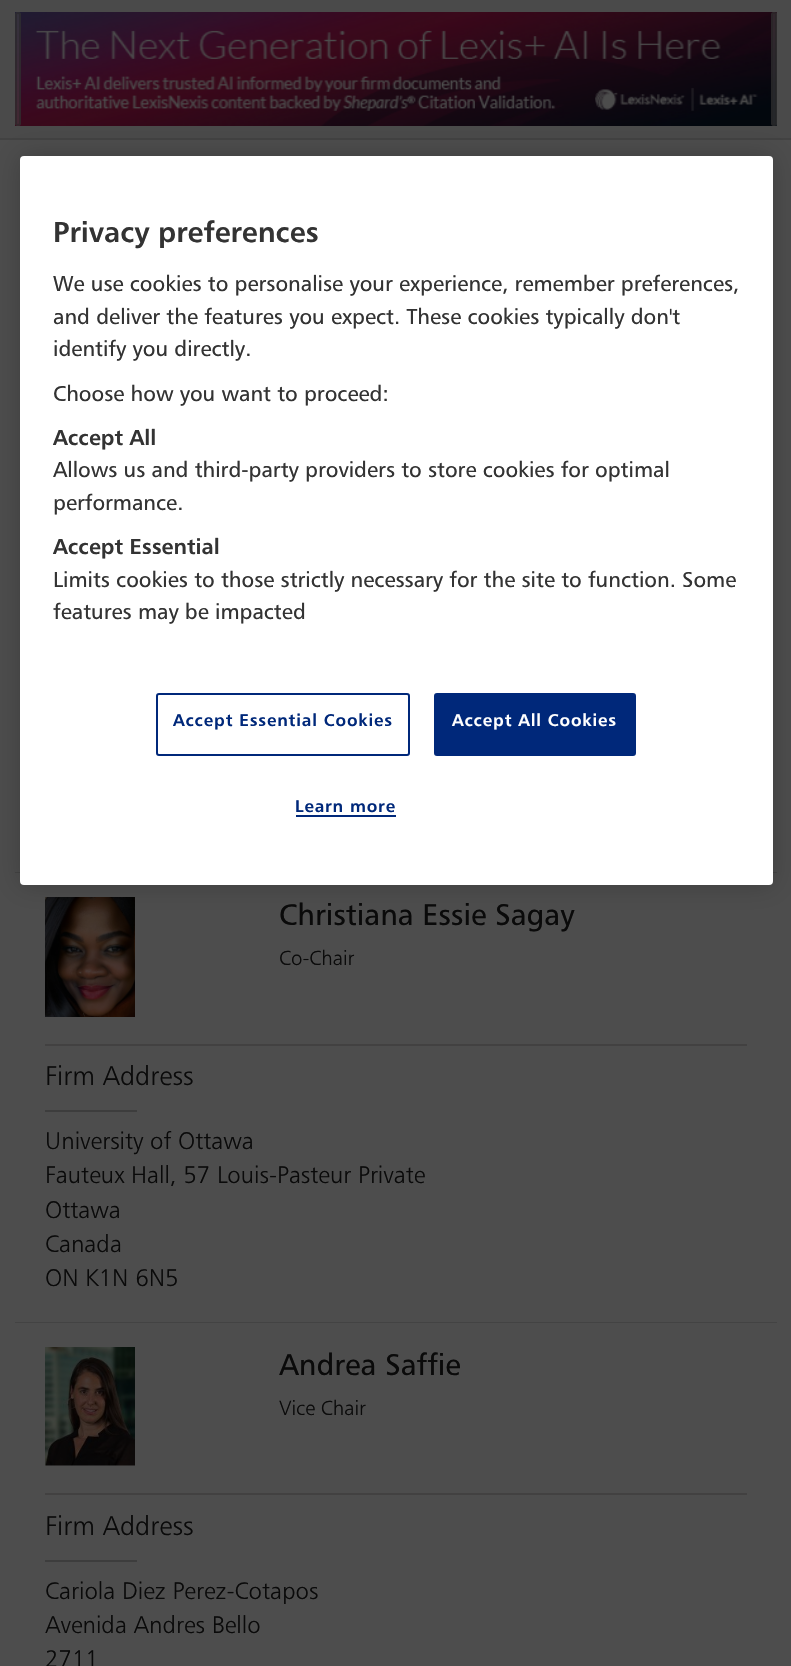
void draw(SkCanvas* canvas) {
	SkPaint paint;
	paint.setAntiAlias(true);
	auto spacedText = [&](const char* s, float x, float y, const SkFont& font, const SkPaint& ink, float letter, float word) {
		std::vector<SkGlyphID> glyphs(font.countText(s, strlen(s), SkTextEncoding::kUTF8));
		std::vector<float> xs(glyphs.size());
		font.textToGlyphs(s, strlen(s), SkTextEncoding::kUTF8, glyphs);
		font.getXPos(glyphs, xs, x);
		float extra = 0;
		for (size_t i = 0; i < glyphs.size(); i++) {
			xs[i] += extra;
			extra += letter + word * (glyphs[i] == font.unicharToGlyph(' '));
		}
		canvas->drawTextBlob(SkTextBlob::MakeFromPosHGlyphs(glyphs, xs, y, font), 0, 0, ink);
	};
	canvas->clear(0xff4d4d4d);
	paint.setColor(0xff4a4a4a);
	canvas->drawRect(SkRect::MakeXYWH(0, 0, 791, 138), paint);
	paint.setColor(0xff424242);
	canvas->drawRect(SkRect::MakeXYWH(0, 138, 791, 2), paint);
	canvas->drawImageRect(SkImages::DeferredFromEncodedData(SkData::MakeFromFileName("img1.png")), SkRect::MakeXYWH(15, 12, 762, 114), SkSamplingOptions());
	paint.setColor(0x80484848);
	canvas->drawRoundRect(SkRect::MakeXYWH(15, 12, 6, 114), 3, 3, paint);
	paint.setStroke(true);
	paint.setStrokeWidth(2);
	paint.setColor(0x80232323);
	canvas->drawRoundRect(SkRect::MakeXYWH(16, 13, 4, 112), 2, 2, paint);
	paint.setStroke(false);
	paint.setColor(0x80484848);
	canvas->drawRoundRect(SkRect::MakeXYWH(771, 12, 6, 114), 3, 3, paint);
	paint.setStroke(true);
	paint.setColor(0x80232323);
	canvas->drawRoundRect(SkRect::MakeXYWH(772, 13, 4, 112), 2, 2, paint);
	paint.setStroke(false);
	paint.setColor(0xff434343);
	canvas->drawRect(SkRect::MakeXYWH(15, 872, 762, 1), paint);
	canvas->drawImageRect(SkImages::DeferredFromEncodedData(SkData::MakeFromFileName("img2.png")), SkRect::MakeXYWH(45, 897, 90, 120), SkSamplingOptions());
	paint.setColor(0x33000000);
	paint.setMaskFilter(SkMaskFilter::MakeBlur(kNormal_SkBlurStyle, 13.5));
	canvas->drawRoundRect(SkRect::MakeXYWH(20, 156, 753, 729), 4, 4, paint);
	paint.setMaskFilter(nullptr);
	paint.setColor(0xffffffff);
	canvas->drawRoundRect(SkRect::MakeXYWH(20, 156, 753, 729), 4, 4, paint);
	SkFont f1(fontMgr->matchFamilyStyle("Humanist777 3", SkFontStyle::Normal()), 28.75);
	f1.setSubpixel(true);
	paint.setColor(0xff333333);
	canvas->drawString("Privacy preferences", 53, 242, f1, paint);
	SkFont f2(fontMgr->matchFamilyStyle("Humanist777", SkFontStyle::Normal()), 21.6);
	f2.setSubpixel(true);
	canvas->drawString("We use cookies to personalise your experience, remember preferences,", 53, 291, f2, paint);
	canvas->drawString("and deliver the features you expect. These cookies typically don't", 53, 324, f2, paint);
	canvas->drawString("identify you directly.", 53, 356, f2, paint);
	canvas->drawString("Choose how you want to proceed:", 53, 401, f2, paint);
	SkFont f3(fontMgr->matchFamilyStyle("Humanist777 3", SkFontStyle::Normal()), 21.6);
	f3.setSubpixel(true);
	canvas->drawString("Accept All", 53, 445, f3, paint);
	canvas->drawString("Allows us and third-party providers to store cookies for optimal", 53, 477, f2, paint);
	canvas->drawString("performance.", 53, 510, f2, paint);
	canvas->drawString("Accept Essential", 53, 554, f3, paint);
	canvas->drawString("Limits cookies to those strictly necessary for the site to function. Some", 53, 587, f2, paint);
	canvas->drawString("features may be impacted", 53, 619, f2, paint);
	paint.setStroke(true);
	paint.setColor(0xff00287a);
	canvas->drawRoundRect(SkRect::MakeXYWH(157, 694, 252, 61), 2, 2, paint);
	SkFont f4(fontMgr->matchFamilyStyle("Humanist777 3", SkFontStyle::Normal()), 17);
	f4.setSubpixel(true);
	paint.setStroke(false);
	spacedText("Accept Essential Cookies", 173, 726, f4, paint, 0.85, 0);
	canvas->drawRoundRect(SkRect::MakeXYWH(435, 694, 200, 61), 2, 2, paint);
	paint.setStroke(true);
	canvas->drawRoundRect(SkRect::MakeXYWH(435, 694, 200, 61), 2, 2, paint);
	paint.setStroke(false);
	paint.setColor(0xffffffff);
	spacedText("Accept All Cookies", 452, 726, f4, paint, 0.85, 0);
	paint.setColor(0xff00287a);
	spacedText("Learn more", 295, 812, f4, paint, 0.85, 0);
	canvas->drawRect(SkRect::MakeXYWH(296, 815, 100, 2), paint);
	paint.setColor(0xff434343);
	canvas->drawRect(SkRect::MakeXYWH(15, 1322, 762, 1), paint);
	SkFont f5(fontMgr->matchFamilyStyle("Humanist777", SkFontStyle::Normal()), 30);
	f5.setSubpixel(true);
	paint.setColor(0xff0a0a0a);
	canvas->drawString("Christiana Essie Sagay", 279, 925, f5, paint);
	SkFont f6(fontMgr->matchFamilyStyle("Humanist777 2", SkFontStyle::Normal()), 20.5);
	f6.setSubpixel(true);
	canvas->drawString("Co-Chair", 279, 965, f6, paint);
	paint.setColor(0xff424141);
	canvas->drawRect(SkRect::MakeXYWH(45, 1044, 702, 2), paint);
	SkFont f7(fontMgr->matchFamilyStyle("Humanist777 2", SkFontStyle::Normal()), 27);
	f7.setSubpixel(true);
	paint.setColor(0xff0a0a0a);
	canvas->drawString("Firm Address", 45, 1085, f7, paint);
	paint.setColor(0xff3d3d3d);
	canvas->drawRect(SkRect::MakeXYWH(45, 1110, 92, 2), paint);
	SkFont f8(fontMgr->matchFamilyStyle("Humanist777 2", SkFontStyle::Normal()), 24);
	f8.setSubpixel(true);
	paint.setColor(0xff0a0a0a);
	canvas->drawString("University of Ottawa", 45, 1149, f8, paint);
	canvas->drawString("Fauteux Hall, 57 Louis-Pasteur Private", 45, 1183, f8, paint);
	canvas->drawString("Ottawa", 45, 1218, f8, paint);
	canvas->drawString("Canada", 45, 1252, f8, paint);
	canvas->drawString("ON K1N 6N5", 45, 1286, f8, paint);
	canvas->drawImageRect(SkImages::DeferredFromEncodedData(SkData::MakeFromFileName("img3.png")), SkRect::MakeXYWH(45, 1347, 90, 119), SkSamplingOptions());
	canvas->drawString("Andrea Saffie", 279, 1375, f5, paint);
	canvas->drawString("Vice Chair", 279, 1415, f6, paint);
	paint.setColor(0xff424141);
	canvas->drawRect(SkRect::MakeXYWH(45, 1493, 702, 2), paint);
	paint.setColor(0xff0a0a0a);
	canvas->drawString("Firm Address", 45, 1535, f7, paint);
	paint.setColor(0xff3d3d3d);
	canvas->drawRect(SkRect::MakeXYWH(45, 1560, 92, 2), paint);
	paint.setColor(0xff0a0a0a);
	canvas->drawString("Cariola Diez Perez-Cotapos", 45, 1599, f8, paint);
	canvas->drawString("Avenida Andres Bello", 45, 1633, f8, paint);
	canvas->drawString("2711", 45, 1667, f8, paint);
}
